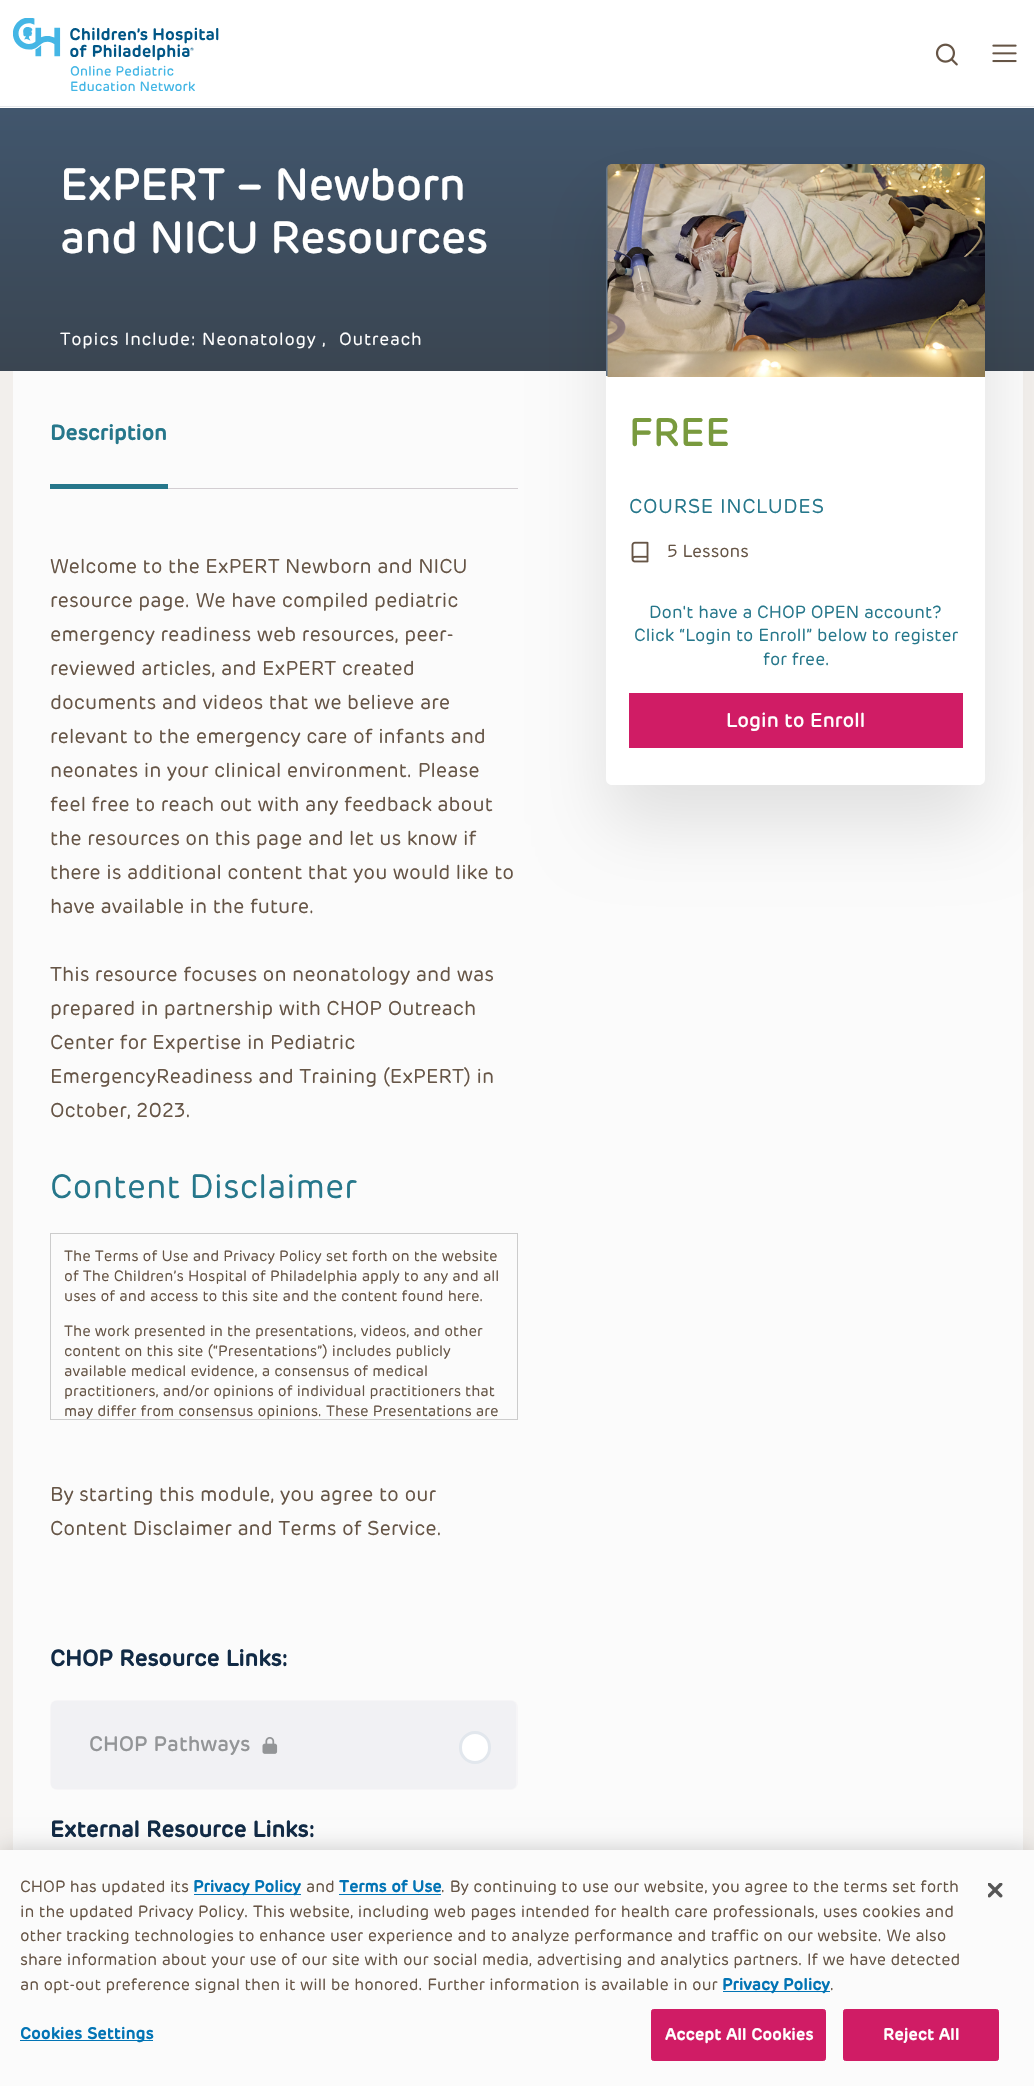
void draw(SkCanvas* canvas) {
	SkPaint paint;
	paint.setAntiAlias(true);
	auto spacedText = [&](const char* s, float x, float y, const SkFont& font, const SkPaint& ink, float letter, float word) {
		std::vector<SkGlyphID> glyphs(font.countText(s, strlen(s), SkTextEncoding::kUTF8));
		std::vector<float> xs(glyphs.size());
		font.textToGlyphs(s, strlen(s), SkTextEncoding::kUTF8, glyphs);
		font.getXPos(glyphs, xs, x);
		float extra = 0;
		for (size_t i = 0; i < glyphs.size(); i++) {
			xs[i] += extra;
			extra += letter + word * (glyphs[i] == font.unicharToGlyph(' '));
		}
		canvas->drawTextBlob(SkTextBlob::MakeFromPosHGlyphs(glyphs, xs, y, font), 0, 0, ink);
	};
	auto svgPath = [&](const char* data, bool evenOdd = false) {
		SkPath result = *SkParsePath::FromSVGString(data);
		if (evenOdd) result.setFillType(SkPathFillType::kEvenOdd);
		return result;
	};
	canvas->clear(0xfff2efec);
	paint.setColor(0xfffbfbfb);
	canvas->drawRect(SkRect::MakeXYWH(13, 371, 1010, 1479), paint);
	{
		const SkColor colors[] = {0xff41566d, 0xff3a4551};
		const float stops[] = {0.04, 1};
		const SkPoint ends[] = {{518, 96}, {518, 371}};
		paint.setShader(SkGradientShader::MakeLinear(ends, colors, stops, 2, SkTileMode::kClamp));
		paint.setAlpha(255);
	}
	canvas->drawRect(SkRect::MakeXYWH(0, 108, 1034, 263), paint);
	paint.setShader(nullptr);
	paint.setColor(0x1a000000);
	paint.setMaskFilter(SkMaskFilter::MakeBlur(kNormal_SkBlurStyle, 34));
	canvas->drawRoundRect(SkRect::MakeXYWH(606, 204, 379, 621), 6, 6, paint);
	paint.setMaskFilter(nullptr);
	paint.setColor(0xffffffff);
	canvas->drawRect(SkRect::MakeXYWH(0, 0, 1034, 108), paint);
	paint.setColor(0xffe7e9ec);
	canvas->drawRect(SkRect::MakeXYWH(0, 106, 1034, 1), paint);
	canvas->drawImageRect(SkImages::DeferredFromEncodedData(SkData::MakeFromFileName("img1.png")), SkRect::MakeXYWH(13, 18, 206, 73), SkSamplingOptions());
	canvas->drawImageRect(SkImages::DeferredFromEncodedData(SkData::MakeFromFileName("img2.png")), SkRect::MakeXYWH(935, 43, 23, 23), SkSamplingOptions());
	canvas->drawImageRect(SkImages::DeferredFromEncodedData(SkData::MakeFromFileName("img3.png")), SkRect::MakeXYWH(992, 44, 25, 19), SkSamplingOptions());
	SkFont f1(fontMgr->matchFamilyStyle("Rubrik", SkFontStyle(500, SkFontStyle::kNormal_Width, SkFontStyle::kUpright_Slant)), 45);
	f1.setSubpixel(true);
	paint.setColor(0xffffffff);
	spacedText("ExPERT – Newborn", 60, 200, f1, paint, -0.6, 0);
	spacedText("and NICU Resources", 60, 253, f1, paint, -0.6, 0);
	SkFont f2(fontMgr->matchFamilyStyle("Rubrik", SkFontStyle::Normal()), 17.5);
	f2.setSubpixel(true);
	spacedText("Topics Include: Neonatology ,", 60, 345, f2, paint, 0.75, 0);
	spacedText("Outreach", 339, 345, f2, paint, 0.75, 0);
	paint.setColor(0xff26778b);
	canvas->drawRect(SkRect::MakeXYWH(50, 484, 118, 5), paint);
	SkFont f3(fontMgr->matchFamilyStyle("Rubrik", SkFontStyle::Bold()), 21.25);
	f3.setSubpixel(true);
	canvas->drawString("Description", 50, 440, f3, paint);
	paint.setColor(0xffd3ced2);
	canvas->drawRect(SkRect::MakeXYWH(168, 488, 350, 1), paint);
	SkFont f4(fontMgr->matchFamilyStyle("Rubrik", SkFontStyle::Normal()), 20);
	f4.setSubpixel(true);
	paint.setColor(0xff665546);
	canvas->drawString("Welcome to the ExPERT Newborn and NICU", 50, 573, f4, paint);
	canvas->drawString("resource page. We have compiled pediatric", 50, 607, f4, paint);
	canvas->drawString("emergency readiness web resources, peer-", 50, 641, f4, paint);
	canvas->drawString("reviewed articles, and ExPERT created", 50, 675, f4, paint);
	canvas->drawString("documents and videos that we believe are", 50, 709, f4, paint);
	canvas->drawString("relevant to the emergency care of infants and", 50, 743, f4, paint);
	canvas->drawString("neonates in your clinical environment. Please", 50, 777, f4, paint);
	canvas->drawString("feel free to reach out with any feedback about", 50, 811, f4, paint);
	canvas->drawString("the resources on this page and let us know if", 50, 845, f4, paint);
	canvas->drawString("there is additional content that you would like to", 50, 879, f4, paint);
	canvas->drawString("have available in the future.", 50, 913, f4, paint);
	canvas->drawString("This resource focuses on neonatology and was", 50, 981, f4, paint);
	canvas->drawString("prepared in partnership with CHOP Outreach", 50, 1015, f4, paint);
	canvas->drawString("Center for Expertise in Pediatric", 50, 1049, f4, paint);
	canvas->drawString("EmergencyReadiness and Training (ExPERT) in", 50, 1083, f4, paint);
	canvas->drawString("October, 2023.", 50, 1117, f4, paint);
	SkFont f5(fontMgr->matchFamilyStyle("Rubrik", SkFontStyle::Normal()), 33.75);
	f5.setSubpixel(true);
	paint.setColor(0xff26778b);
	canvas->drawString("Content Disclaimer", 50, 1198, f5, paint);
	paint.setStroke(true);
	paint.setStrokeWidth(1);
	paint.setColor(0xffcccccc);
	canvas->drawRect(SkRect::MakeXYWH(50.5, 1233.5, 467, 186), paint);
	SkFont f6(fontMgr->matchFamilyStyle("Rubrik", SkFontStyle::Normal()), 15);
	f6.setSubpixel(true);
	paint.setStroke(false);
	paint.setColor(0xff665546);
	canvas->drawString("The Terms of Use and Privacy Policy set forth on the website", 64, 1261, f6, paint);
	canvas->drawString("of The Children’s Hospital of Philadelphia apply to any and all", 64, 1281, f6, paint);
	canvas->drawString("uses of and access to this site and the content found here.", 64, 1301, f6, paint);
	canvas->drawString("The work presented in the presentations, videos, and other", 64, 1336, f6, paint);
	canvas->drawString("content on this site (“Presentations”) includes publicly", 64, 1356, f6, paint);
	canvas->drawString("available medical evidence, a consensus of medical", 64, 1376, f6, paint);
	canvas->drawString("practitioners, and/or opinions of individual practitioners that", 64, 1396, f6, paint);
	canvas->drawString("may differ from consensus opinions. These Presentations are", 64, 1416, f6, paint);
	canvas->drawString("By starting this module, you agree to our", 50, 1501, f4, paint);
	canvas->drawString("Content Disclaimer and Terms of Service.", 50, 1535, f4, paint);
	SkFont f7(fontMgr->matchFamilyStyle("Rubrik", SkFontStyle::Bold()), 22.5);
	f7.setSubpixel(true);
	paint.setColor(0xff122b46);
	canvas->drawString("CHOP Resource Links:", 50, 1666, f7, paint);
	paint.setColor(0xfff6f5f7);
	canvas->drawRoundRect(SkRect::MakeXYWH(50, 1700, 468, 90), 8, 8, paint);
	paint.setColor(0xfff1f1f4);
	canvas->drawRoundRect(SkRect::MakeXYWH(51, 1701, 465, 88), 5, 5, paint);
	SkFont f8(fontMgr->matchFamilyStyle("Rubrik", SkFontStyle(500, SkFontStyle::kNormal_Width, SkFontStyle::kUpright_Slant)), 21);
	f8.setSubpixel(true);
	paint.setColor(0xff939597);
	canvas->drawString("CHOP Pathways", 89, 1751, f8, paint);
	canvas->drawImageRect(SkImages::DeferredFromEncodedData(SkData::MakeFromFileName("img4.png")), SkRect::MakeXYWH(262, 1737, 16, 17), SkSamplingOptions());
	paint.setColor(0xffffffff);
	canvas->drawRoundRect(SkRect::MakeXYWH(460.5, 1732.5, 29, 30), 14.5, 14.5, paint);
	paint.setStroke(true);
	paint.setStrokeWidth(3);
	paint.setColor(0xffe2e7ed);
	canvas->drawRoundRect(SkRect::MakeXYWH(460.5, 1732.5, 29, 30), 14.5, 14.5, paint);
	paint.setStroke(false);
	paint.setColor(0xff122b46);
	canvas->drawString("External Resource Links:", 50, 1837, f7, paint);
	paint.setColor(0xff607387);
	canvas->drawPath(svgPath("M612 164H979C982.5 164 985 166.5 985 170V376H606V170C606 166.5 608.5 164 612 164Z"), paint);
	paint.setColor(0xffffffff);
	canvas->drawPath(svgPath("M606 376H985V779C985 782.5 982.5 785 979 785H612C608.5 785 606 782.5 606 779Z"), paint);
	canvas->drawImageRect(SkImages::DeferredFromEncodedData(SkData::MakeFromFileName("img5.png")), SkRect::MakeXYWH(607, 164, 378, 213), SkSamplingOptions());
	SkFont f9(fontMgr->matchFamilyStyle("Rubrik", SkFontStyle(500, SkFontStyle::kNormal_Width, SkFontStyle::kUpright_Slant)), 40);
	f9.setSubpixel(true);
	paint.setColor(0xff799a3e);
	canvas->drawString("FREE", 629, 446, f9, paint);
	paint.setColor(0xff26778b);
	spacedText("COURSE INCLUDES", 629, 513, f4, paint, 0.6, 0);
	canvas->drawImageRect(SkImages::DeferredFromEncodedData(SkData::MakeFromFileName("img6.png")), SkRect::MakeXYWH(631, 541, 18, 22), SkSamplingOptions());
	paint.setColor(0xff665546);
	canvas->drawString("5 Lessons", 667, 557, f2, paint);
	paint.setColor(0xff26778b);
	canvas->drawString("Don't have a CHOP OPEN account?", 649, 618, f2, paint);
	canvas->drawString("Click “Login to Enroll” below to register", 634, 641, f2, paint);
	canvas->drawString("for free.", 763, 665, f2, paint);
	paint.setColor(0xffd01c65);
	canvas->drawRect(SkRect::MakeXYWH(629, 693, 334, 55), paint);
	SkFont f10(fontMgr->matchFamilyStyle("Rubrik", SkFontStyle(500, SkFontStyle::kNormal_Width, SkFontStyle::kUpright_Slant)), 20);
	f10.setSubpixel(true);
	paint.setColor(0xffffffff);
	canvas->drawString("Login to Enroll", 726, 727, f10, paint);
	paint.setColor(0x33000000);
	paint.setMaskFilter(SkMaskFilter::MakeBlur(kNormal_SkBlurStyle, 11));
	canvas->drawRect(SkRect::MakeXYWH(0, 1850, 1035, 236), paint);
	paint.setMaskFilter(nullptr);
	paint.setColor(0xfffbfbfb);
	canvas->drawRect(SkRect::MakeXYWH(0, 1850, 1034, 236), paint);
	SkFont f11(fontMgr->matchFamilyStyle("Rubrik", SkFontStyle::Normal()), 16.25);
	f11.setSubpixel(true);
	paint.setColor(0xff665546);
	canvas->drawString("CHOP has updated its", 20, 1892, f11, paint);
	paint.setColor(0xff0274b5);
	canvas->drawRect(SkRect::MakeXYWH(194, 1894, 107, 1), paint);
	SkFont f12(fontMgr->matchFamilyStyle("Rubrik", SkFontStyle::Bold()), 16.25);
	f12.setSubpixel(true);
	canvas->drawString("Privacy Policy", 193, 1892, f12, paint);
	paint.setColor(0xff665546);
	canvas->drawString("and", 306, 1892, f11, paint);
	paint.setColor(0xff0274b5);
	canvas->drawString("Terms of Use", 339, 1892, f12, paint);
	canvas->drawRect(SkRect::MakeXYWH(339, 1894, 102, 1), paint);
	paint.setColor(0xff665546);
	canvas->drawString(". By continuing to use our website, you agree to the terms set forth", 441, 1892, f11, paint);
	canvas->drawString("in the updated Privacy Policy. This website, including web pages intended for health care professionals, uses cookies and", 20, 1917, f11, paint);
	canvas->drawString("other tracking technologies to enhance user experience and to analyze performance and traffic on our website. We also", 20, 1941, f11, paint);
	canvas->drawString("share information about your use of our site with our social media, advertising and analytics partners. If we have detected", 20, 1965, f11, paint);
	canvas->drawString("an opt-out preference signal then it will be honored. Further information is available in our", 20, 1990, f11, paint);
	paint.setColor(0xff0274b5);
	canvas->drawRect(SkRect::MakeXYWH(723, 1991, 107, 1), paint);
	canvas->drawString("Privacy Policy", 722, 1990, f12, paint);
	paint.setColor(0xff665546);
	canvas->drawString(".", 830, 1990, f11, paint);
	paint.setColor(0xff0274b5);
	canvas->drawRect(SkRect::MakeXYWH(20, 2040, 133, 1), paint);
	spacedText("Cookies Settings", 20, 2039, f12, paint, 0.2, 0);
	paint.setColor(0xffd01c65);
	canvas->drawRoundRect(SkRect::MakeXYWH(651.5, 2009.5, 174, 51), 2, 2, paint);
	paint.setStroke(true);
	paint.setStrokeWidth(1);
	canvas->drawRoundRect(SkRect::MakeXYWH(651.5, 2009.5, 174, 51), 2, 2, paint);
	paint.setStroke(false);
	paint.setColor(0xffffffff);
	spacedText("Accept All Cookies", 665, 2040, f12, paint, 0.2, 0);
	paint.setColor(0xffd01c65);
	canvas->drawRoundRect(SkRect::MakeXYWH(843.5, 2009.5, 155, 51), 2, 2, paint);
	paint.setStroke(true);
	canvas->drawRoundRect(SkRect::MakeXYWH(843.5, 2009.5, 155, 51), 2, 2, paint);
	paint.setStroke(false);
	paint.setColor(0xffffffff);
	spacedText("Reject All", 883, 2040, f12, paint, 0.2, 0);
	canvas->drawImageRect(SkImages::DeferredFromEncodedData(SkData::MakeFromFileName("img7.png")), SkRect::MakeXYWH(988, 1883, 15, 15), SkSamplingOptions());
}
